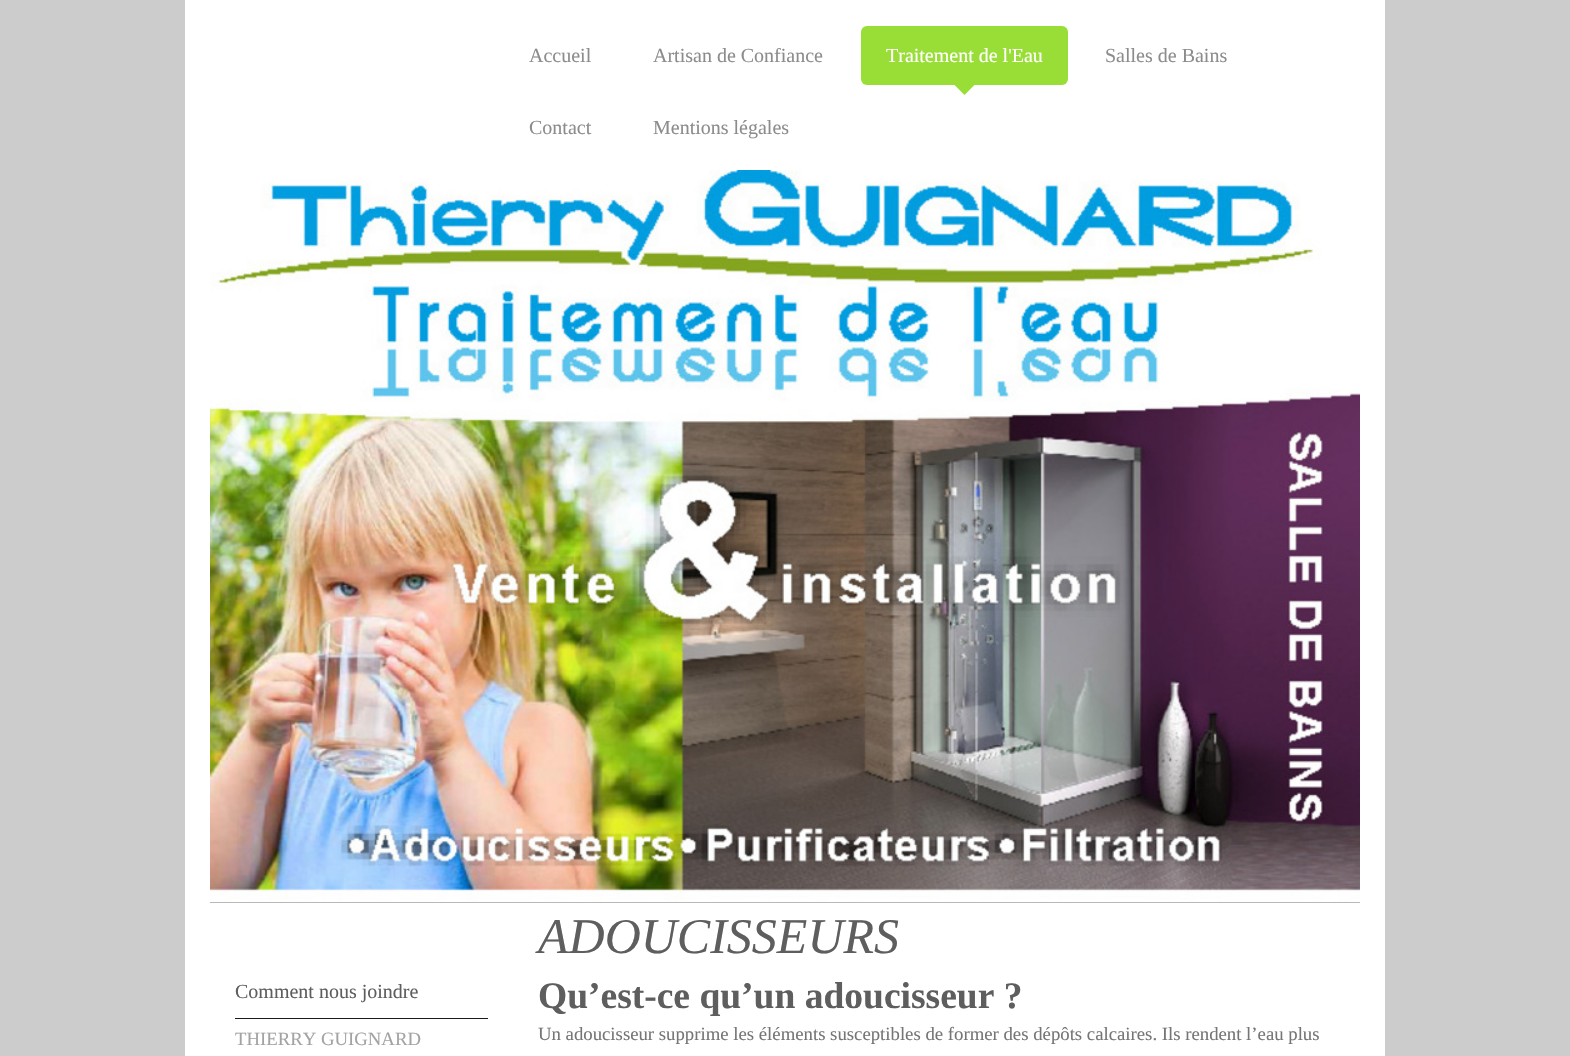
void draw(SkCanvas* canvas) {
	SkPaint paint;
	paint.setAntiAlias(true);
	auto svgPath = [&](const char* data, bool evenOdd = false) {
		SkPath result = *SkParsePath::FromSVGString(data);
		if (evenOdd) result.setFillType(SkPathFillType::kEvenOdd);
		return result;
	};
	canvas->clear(0xffcccccc);
	paint.setColor(0xffffffff);
	canvas->drawRect(SkRect::MakeXYWH(185, 0, 1200, 1056), paint);
	SkFont f1(fontMgr->matchFamilyStyle("Liberation Serif", SkFontStyle::Normal()), 20);
	f1.setSubpixel(true);
	paint.setColor(0xff8c8c8c);
	canvas->drawString("Accueil", 529, 62, f1, paint);
	canvas->drawString("Artisan de Confiance", 653, 62, f1, paint);
	paint.setColor(0xff99de37);
	canvas->drawRoundRect(SkRect::MakeXYWH(861, 26, 207, 59), 6, 6, paint);
	paint.setColor(0xffffffff);
	canvas->drawString("Traitement de l'Eau", 886, 62, f1, paint);
	paint.setColor(0xff99de37);
	canvas->drawPath(svgPath("M952 82.5H977L964.5 95Z"), paint);
	paint.setColor(0xff8c8c8c);
	canvas->drawString("Salles de Bains", 1105, 62, f1, paint);
	canvas->drawString("Contact", 529, 134, f1, paint);
	canvas->drawString("Mentions légales", 653, 134, f1, paint);
	paint.setColor(0xffa0a0a0);
	canvas->drawRect(SkRect::MakeXYWH(210, 902, 1150, 1), paint);
	canvas->drawImageRect(SkImages::DeferredFromEncodedData(SkData::MakeFromFileName("img1.png")), SkRect::MakeXYWH(210, 170, 1150, 733), SkSamplingOptions());
	paint.setColor(0xff1a1a1a);
	canvas->drawRect(SkRect::MakeXYWH(235, 1018, 253, 1), paint);
	paint.setColor(0xff5e5e5e);
	canvas->drawString("Comment nous joindre", 235, 998, f1, paint);
	SkFont f2(fontMgr->matchFamilyStyle("Liberation Serif", SkFontStyle::Normal()), 18.75);
	f2.setSubpixel(true);
	paint.setColor(0xffa3a3a3);
	canvas->drawString("THIERRY GUIGNARD", 235, 1045, f2, paint);
	SkFont f3(fontMgr->matchFamilyStyle("Liberation Serif", SkFontStyle::Italic()), 50);
	f3.setSubpixel(true);
	paint.setColor(0xff5e5e5e);
	canvas->drawString("ADOUCISSEURS", 538, 953, f3, paint);
	SkFont f4(fontMgr->matchFamilyStyle("Liberation Serif", SkFontStyle::Bold()), 37.5);
	f4.setSubpixel(true);
	canvas->drawString("Qu’est-ce qu’un adoucisseur ?", 538, 1008, f4, paint);
	paint.setColor(0xff757575);
	canvas->drawString("Un adoucisseur supprime les éléments susceptibles de former des dépôts calcaires. Ils rendent l’eau plus", 538, 1040, f2, paint);
}
